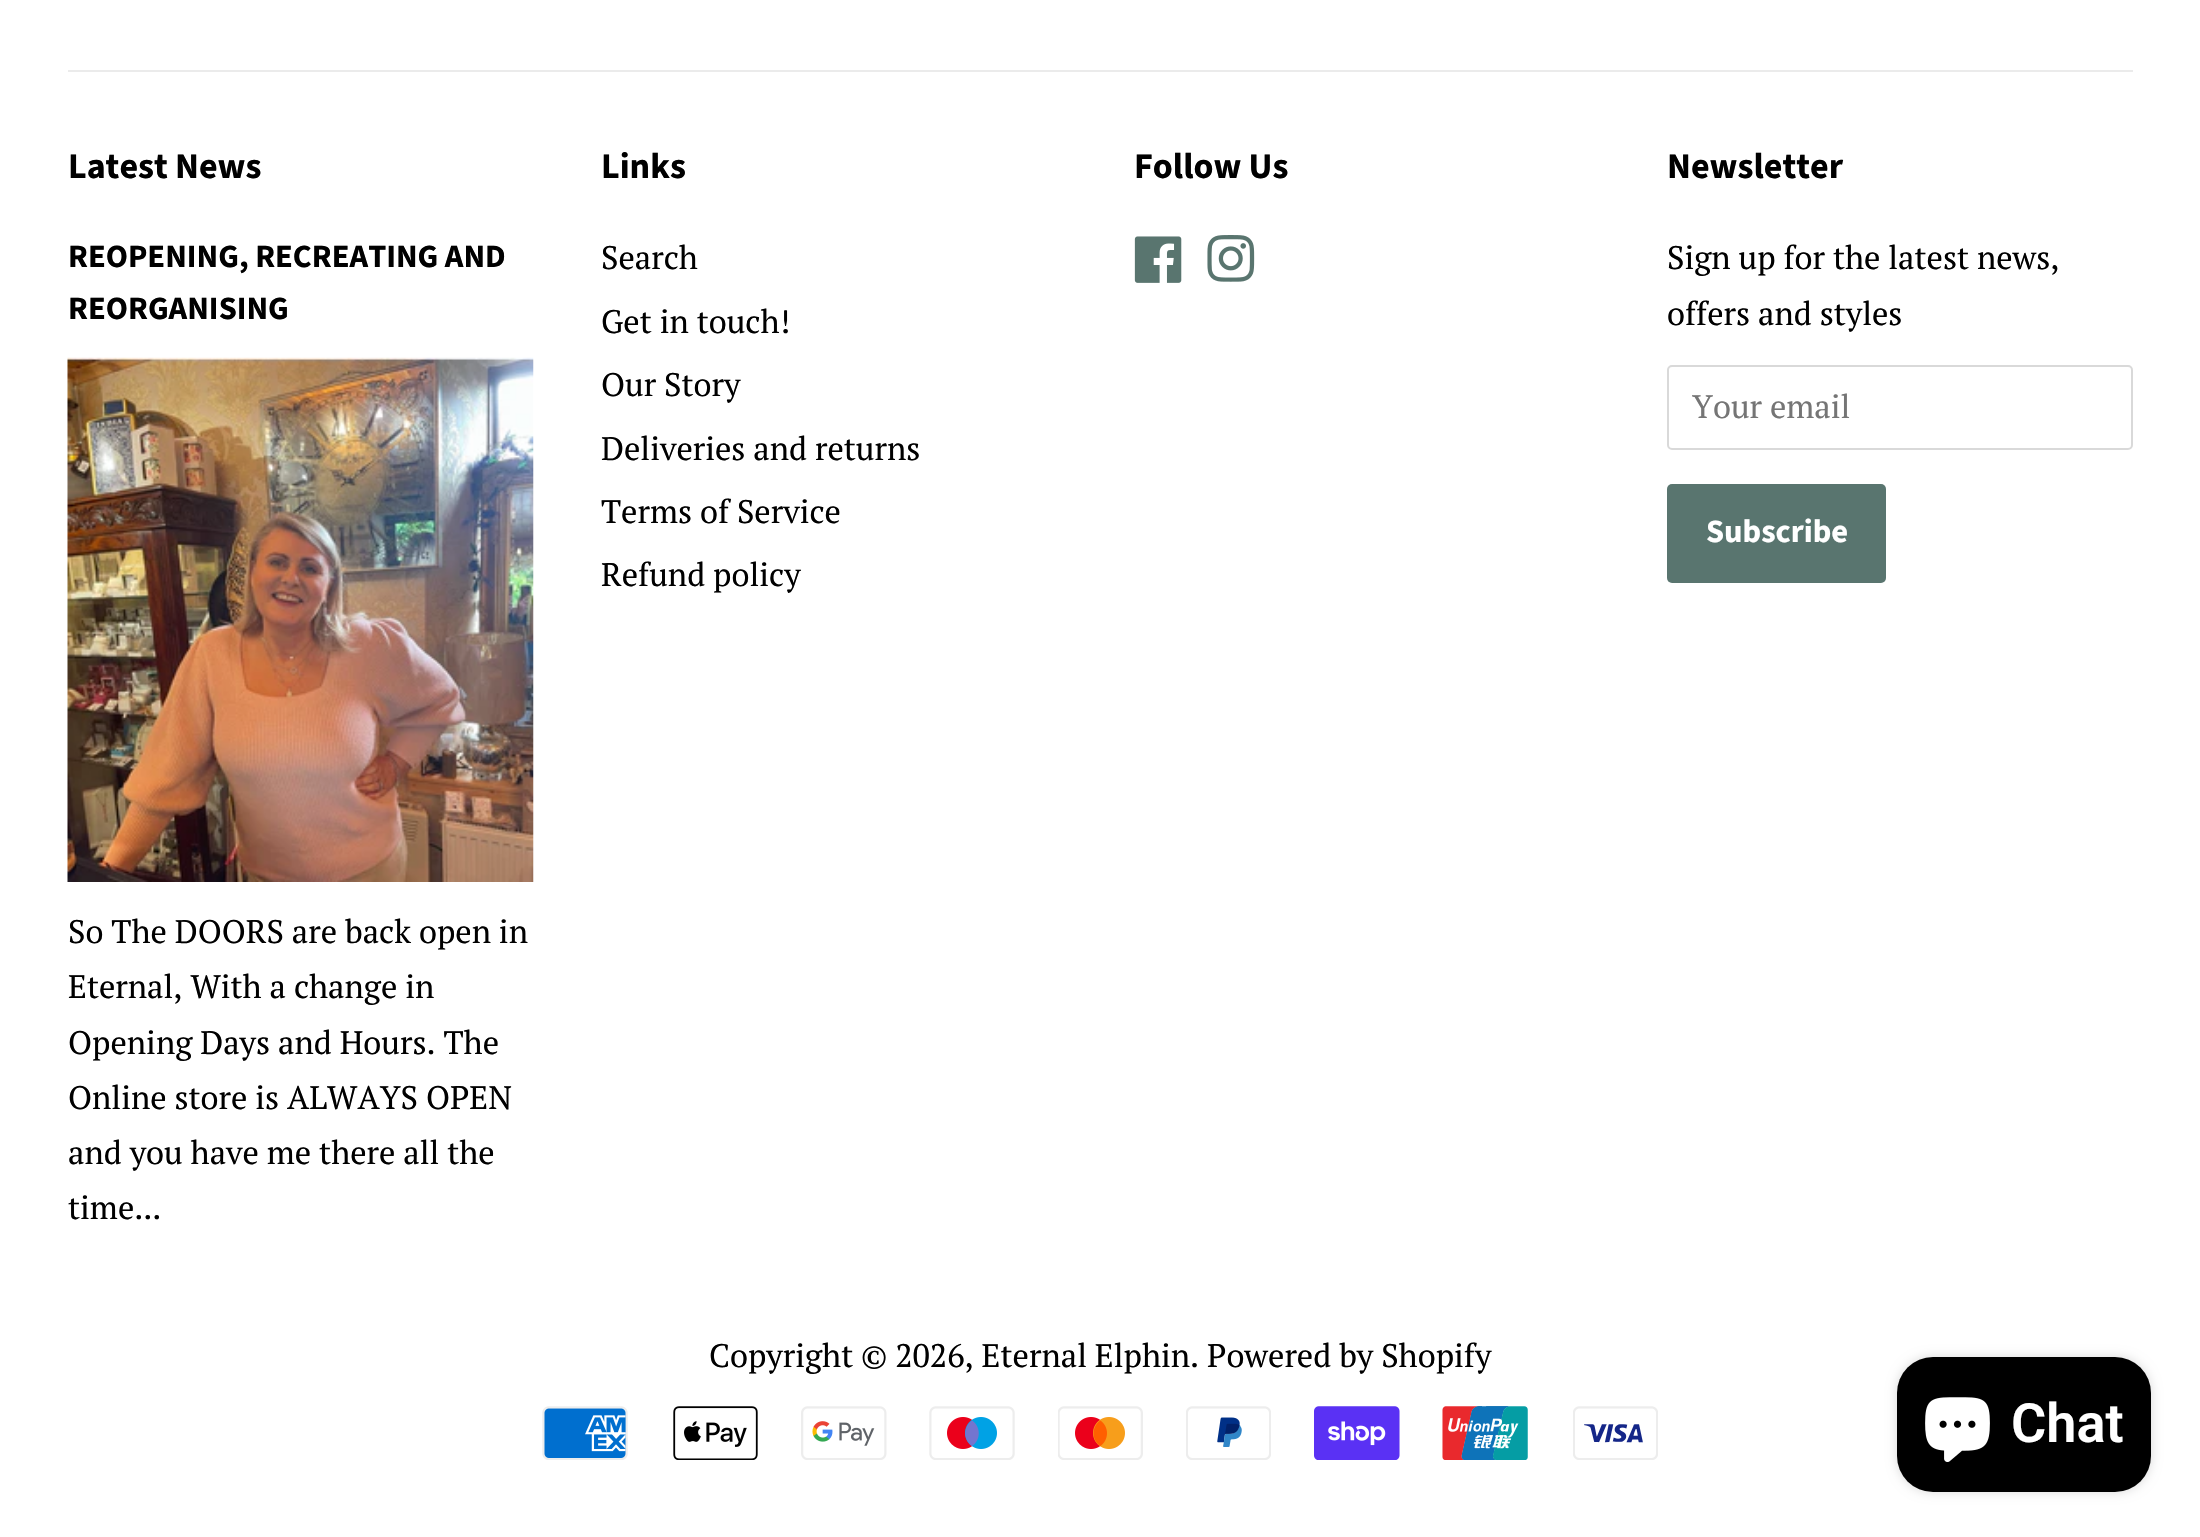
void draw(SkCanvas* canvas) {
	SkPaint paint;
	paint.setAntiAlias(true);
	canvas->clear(0xffffffff);
	paint.setColor(0xffebebeb);
	canvas->drawRect(SkRect::MakeXYWH(68, 70, 2065, 2), paint);
	SkFont f1(fontMgr->matchFamilyStyle("Source Sans Pro", SkFontStyle::Bold()), 36);
	f1.setSubpixel(true);
	paint.setColor(0xff000000);
	canvas->drawString("Latest News", 68, 178, f1, paint);
	SkFont f2(fontMgr->matchFamilyStyle("Source Sans Pro", SkFontStyle::Bold()), 32.5);
	f2.setSubpixel(true);
	canvas->drawString("REOPENING, RECREATING AND", 68, 267, f2, paint);
	canvas->drawString("REORGANISING", 68, 319, f2, paint);
	canvas->drawImageRect(SkImages::DeferredFromEncodedData(SkData::MakeFromFileName("img1.png")), SkRect::MakeXYWH(67, 357, 467, 525), SkSamplingOptions());
	SkFont f3(fontMgr->matchFamilyStyle("PT Serif", SkFontStyle::Normal()), 32.5);
	f3.setSubpixel(true);
	canvas->drawString("So The DOORS are back open in", 68, 943, f3, paint);
	canvas->drawString("Eternal, With a change in", 68, 998, f3, paint);
	canvas->drawString("Opening Days and Hours. The", 68, 1054, f3, paint);
	canvas->drawString("Online store is ALWAYS OPEN", 68, 1109, f3, paint);
	canvas->drawString("and you have me there all the", 68, 1164, f3, paint);
	canvas->drawString("time...", 68, 1219, f3, paint);
	canvas->drawString("Links", 601, 178, f1, paint);
	canvas->drawString("Search", 601, 269, f3, paint);
	canvas->drawString("Get in touch!", 601, 333, f3, paint);
	canvas->drawString("Our Story", 601, 396, f3, paint);
	canvas->drawString("Deliveries and returns", 601, 460, f3, paint);
	canvas->drawString("Terms of Service", 601, 523, f3, paint);
	canvas->drawString("Refund policy", 601, 586, f3, paint);
	canvas->drawString("Follow Us", 1134, 178, f1, paint);
	canvas->drawImageRect(SkImages::DeferredFromEncodedData(SkData::MakeFromFileName("img2.png")), SkRect::MakeXYWH(1134, 236, 48, 47), SkSamplingOptions());
	canvas->drawImageRect(SkImages::DeferredFromEncodedData(SkData::MakeFromFileName("img3.png")), SkRect::MakeXYWH(1207, 235, 48, 47), SkSamplingOptions());
	canvas->drawString("Newsletter", 1667, 178, f1, paint);
	canvas->drawString("Sign up for the latest news,", 1667, 269, f3, paint);
	canvas->drawString("offers and styles", 1667, 325, f3, paint);
	paint.setStroke(true);
	paint.setStrokeWidth(2);
	paint.setColor(0xffd9d9d9);
	canvas->drawRoundRect(SkRect::MakeXYWH(1668, 366, 464, 83), 4, 4, paint);
	paint.setStroke(false);
	paint.setColor(0xff757575);
	canvas->drawString("Your email", 1692, 418, f3, paint);
	paint.setColor(0xff59756f);
	canvas->drawRoundRect(SkRect::MakeXYWH(1667, 484, 219, 99), 5, 5, paint);
	paint.setColor(0xffffffff);
	canvas->drawString("Subscribe", 1706, 542, f2, paint);
	paint.setColor(0xff000000);
	canvas->drawString("Copyright © 2026, Eternal Elphin. Powered by Shopify", 709, 1367, f3, paint);
	canvas->drawImageRect(SkImages::DeferredFromEncodedData(SkData::MakeFromFileName("img4.png")), SkRect::MakeXYWH(542, 1406, 86, 54), SkSamplingOptions());
	canvas->drawImageRect(SkImages::DeferredFromEncodedData(SkData::MakeFromFileName("img5.png")), SkRect::MakeXYWH(673, 1406, 85, 54), SkSamplingOptions());
	canvas->drawImageRect(SkImages::DeferredFromEncodedData(SkData::MakeFromFileName("img6.png")), SkRect::MakeXYWH(801, 1406, 86, 54), SkSamplingOptions());
	canvas->drawImageRect(SkImages::DeferredFromEncodedData(SkData::MakeFromFileName("img7.png")), SkRect::MakeXYWH(929, 1406, 86, 54), SkSamplingOptions());
	canvas->drawImageRect(SkImages::DeferredFromEncodedData(SkData::MakeFromFileName("img8.png")), SkRect::MakeXYWH(1058, 1406, 85, 54), SkSamplingOptions());
	canvas->drawImageRect(SkImages::DeferredFromEncodedData(SkData::MakeFromFileName("img9.png")), SkRect::MakeXYWH(1186, 1406, 85, 54), SkSamplingOptions());
	canvas->drawImageRect(SkImages::DeferredFromEncodedData(SkData::MakeFromFileName("img10.png")), SkRect::MakeXYWH(1314, 1406, 86, 54), SkSamplingOptions());
	canvas->drawImageRect(SkImages::DeferredFromEncodedData(SkData::MakeFromFileName("img11.png")), SkRect::MakeXYWH(1442, 1406, 86, 54), SkSamplingOptions());
	canvas->drawImageRect(SkImages::DeferredFromEncodedData(SkData::MakeFromFileName("img12.png")), SkRect::MakeXYWH(1573, 1406, 85, 54), SkSamplingOptions());
	paint.setColor(0x26000000);
	paint.setMaskFilter(SkMaskFilter::MakeBlur(kNormal_SkBlurStyle, 5.5));
	canvas->drawRoundRect(SkRect::MakeXYWH(1897, 1357, 254, 135), 36, 36, paint);
	paint.setMaskFilter(nullptr);
	paint.setColor(0xff000000);
	canvas->drawRoundRect(SkRect::MakeXYWH(1897, 1357, 254, 135), 36, 36, paint);
	canvas->drawImageRect(SkImages::DeferredFromEncodedData(SkData::MakeFromFileName("img13.png")), SkRect::MakeXYWH(1925, 1397, 65, 65), SkSamplingOptions());
	SkFont f4(fontMgr->matchFamilyStyle("Roboto", SkFontStyle(600, SkFontStyle::kNormal_Width, SkFontStyle::kUpright_Slant)), 54);
	f4.setSubpixel(true);
	paint.setColor(0xffffffff);
	canvas->drawString("Chat", 2011, 1442, f4, paint);
}
